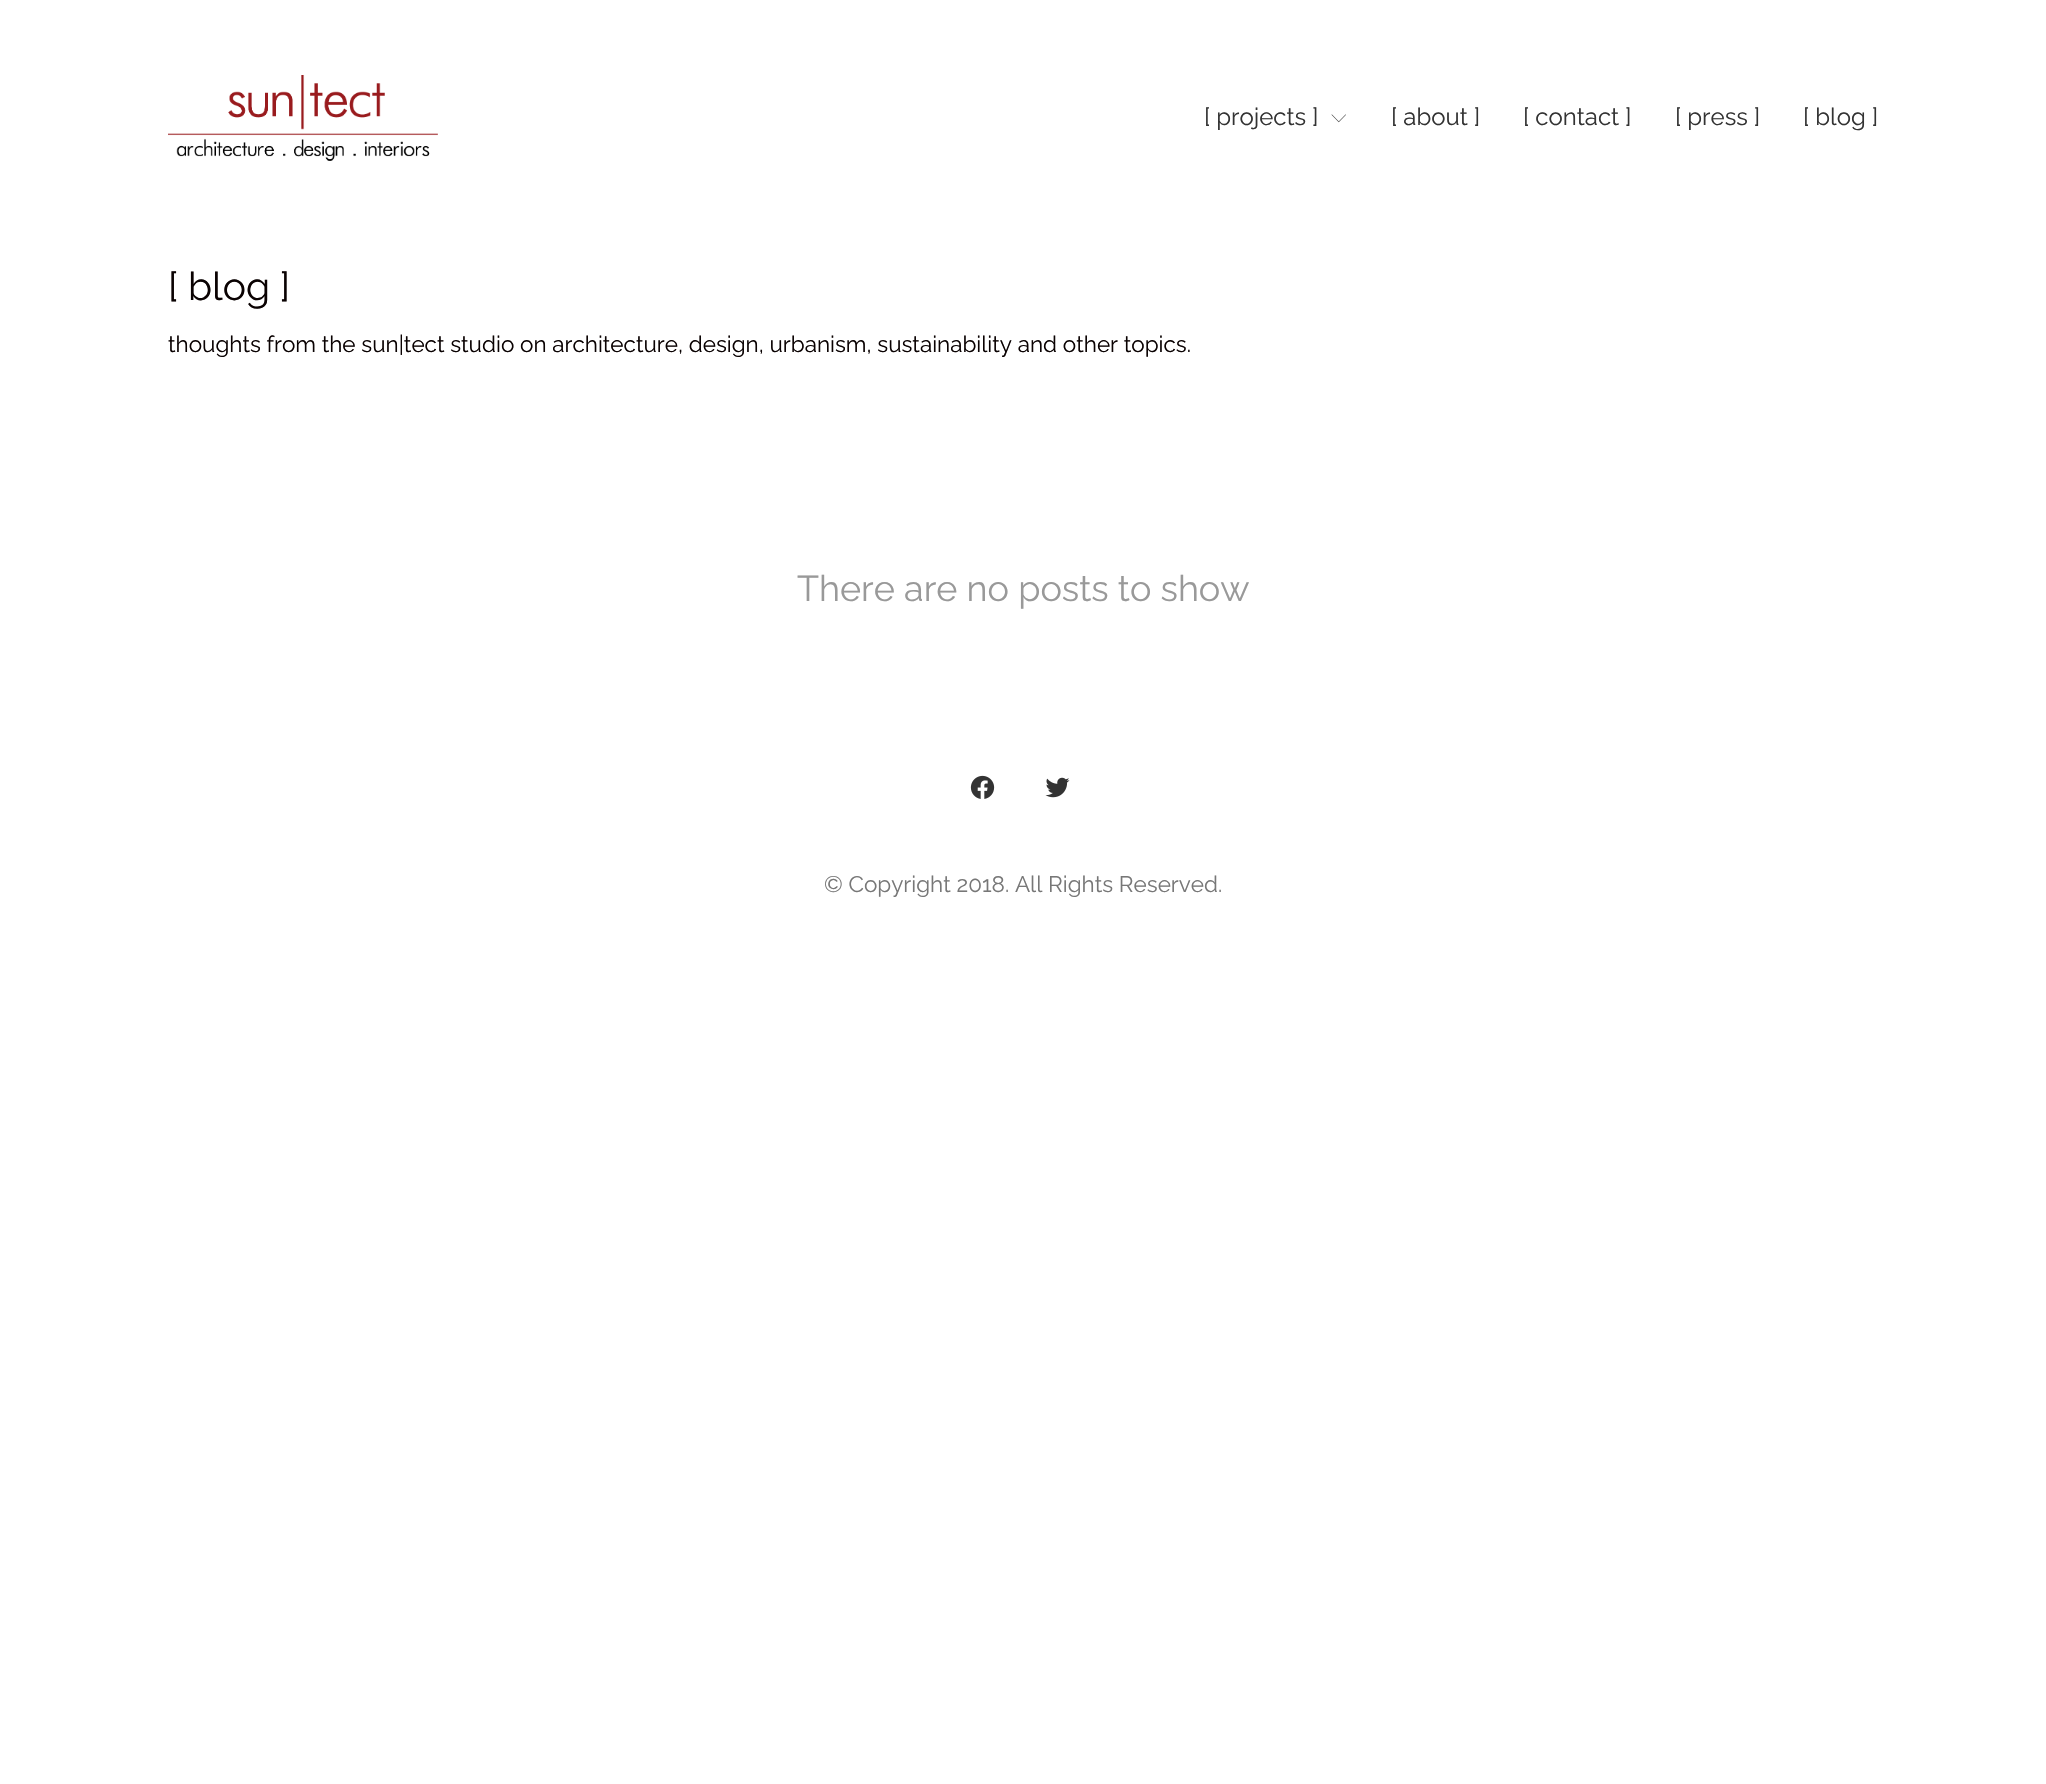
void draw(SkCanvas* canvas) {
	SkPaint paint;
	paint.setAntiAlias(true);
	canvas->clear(0xffffffff);
	canvas->drawImageRect(SkImages::DeferredFromEncodedData(SkData::MakeFromFileName("img1.png")), SkRect::MakeXYWH(168, 75, 270, 86), SkSamplingOptions());
	SkFont f1(fontMgr->matchFamilyStyle("Raleway", SkFontStyle(100, SkFontStyle::kNormal_Width, SkFontStyle::kUpright_Slant)), 24);
	f1.setSubpixel(true);
	paint.setColor(0xff333333);
	canvas->drawString("[ projects ]", 1204, 125, f1, paint);
	canvas->drawImageRect(SkImages::DeferredFromEncodedData(SkData::MakeFromFileName("img2.png")), SkRect::MakeXYWH(1331, 114, 15, 9), SkSamplingOptions());
	canvas->drawString("[ about ]", 1391, 125, f1, paint);
	canvas->drawString("[ contact ]", 1523, 125, f1, paint);
	canvas->drawString("[ press ]", 1675, 125, f1, paint);
	canvas->drawString("[ blog ]", 1803, 125, f1, paint);
	SkFont f2(fontMgr->matchFamilyStyle("Raleway", SkFontStyle(100, SkFontStyle::kNormal_Width, SkFontStyle::kUpright_Slant)), 39);
	f2.setSubpixel(true);
	paint.setColor(0xff0a0202);
	canvas->drawString("[ blog ]", 168, 300, f2, paint);
	SkFont f3(fontMgr->matchFamilyStyle("Raleway", SkFontStyle(100, SkFontStyle::kNormal_Width, SkFontStyle::kUpright_Slant)), 22.5);
	f3.setSubpixel(true);
	canvas->drawString("thoughts from the sun|tect studio on architecture, design, urbanism, sustainability and other topics.", 168, 352, f3, paint);
	SkFont f4(fontMgr->matchFamilyStyle("Raleway", SkFontStyle(100, SkFontStyle::kNormal_Width, SkFontStyle::kUpright_Slant)), 36);
	f4.setSubpixel(true);
	paint.setColor(0xff999999);
	canvas->drawString("There are no posts to show", 797, 601, f4, paint);
	canvas->drawImageRect(SkImages::DeferredFromEncodedData(SkData::MakeFromFileName("img3.png")), SkRect::MakeXYWH(970, 775, 25, 24), SkSamplingOptions());
	canvas->drawImageRect(SkImages::DeferredFromEncodedData(SkData::MakeFromFileName("img4.png")), SkRect::MakeXYWH(1045, 777, 25, 21), SkSamplingOptions());
	paint.setColor(0xff777777);
	canvas->drawString("© Copyright 2018. All Rights Reserved.", 824, 892, f3, paint);
}
